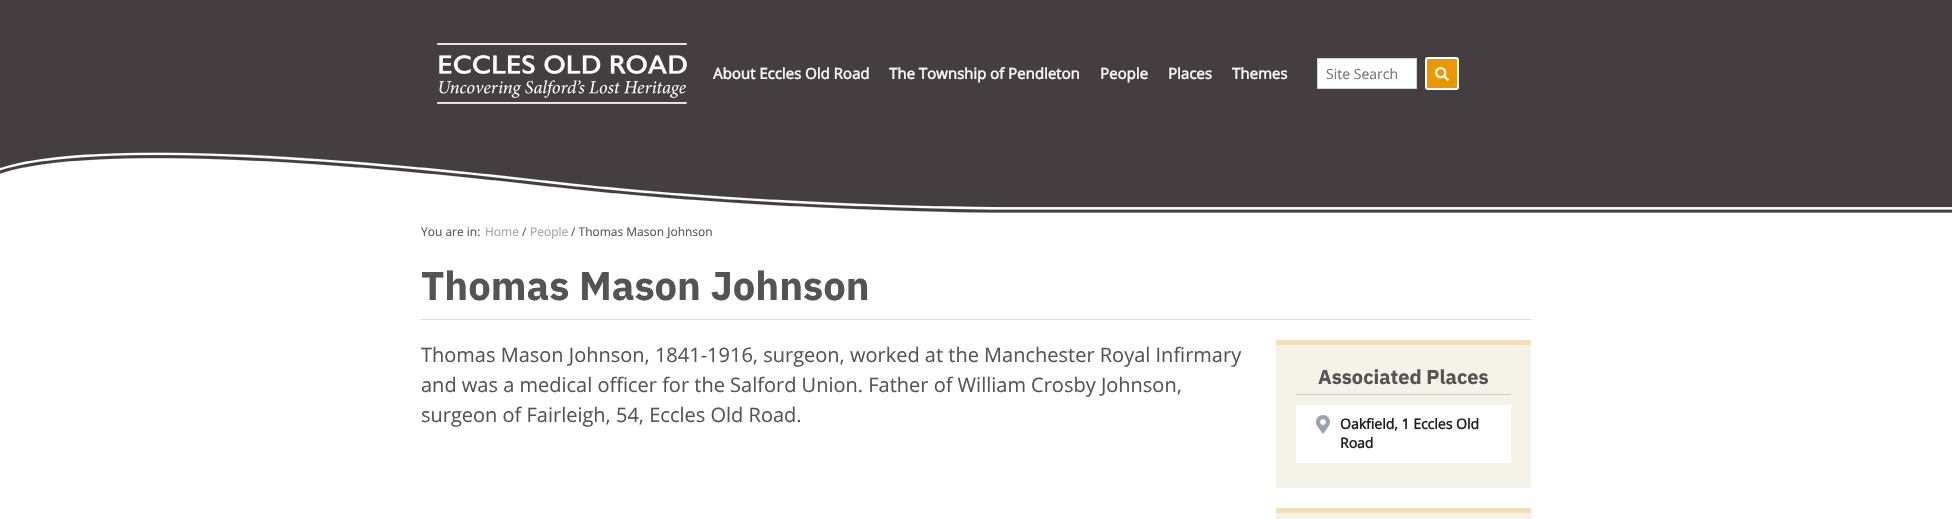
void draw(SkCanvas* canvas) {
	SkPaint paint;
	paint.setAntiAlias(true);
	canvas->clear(0xffffffff);
	paint.setColor(0xff443e40);
	canvas->drawRect(SkRect::MakeXYWH(0, 0, 1952, 150), paint);
	canvas->drawImageRect(SkImages::DeferredFromEncodedData(SkData::MakeFromFileName("img1.png")), SkRect::MakeXYWH(437, 43, 250, 61), SkSamplingOptions());
	SkFont f1(fontMgr->matchFamilyStyle("Open Sans", SkFontStyle::Bold()), 15);
	f1.setSubpixel(true);
	paint.setColor(0xfff6f6f6);
	canvas->drawString("About Eccles Old Road", 713, 79, f1, paint);
	canvas->drawString("The Township of Pendleton", 889, 79, f1, paint);
	canvas->drawString("People", 1100, 79, f1, paint);
	canvas->drawString("Places", 1168, 79, f1, paint);
	canvas->drawString("Themes", 1232, 79, f1, paint);
	paint.setColor(0xffffffff);
	canvas->drawRect(SkRect::MakeXYWH(1317.5, 58.5, 99, 30), paint);
	paint.setStroke(true);
	paint.setStrokeWidth(1);
	paint.setColor(0xffced4da);
	canvas->drawRect(SkRect::MakeXYWH(1317.5, 58.5, 99, 30), paint);
	SkFont f2(fontMgr->matchFamilyStyle("Open Sans", SkFontStyle::Normal()), 14);
	f2.setSubpixel(true);
	paint.setStroke(false);
	paint.setColor(0xff6c757d);
	canvas->drawString("Site Search", 1326, 79, f2, paint);
	paint.setColor(0xffec9700);
	canvas->drawRoundRect(SkRect::MakeXYWH(1426, 58, 32, 31), 2, 2, paint);
	paint.setStroke(true);
	paint.setStrokeWidth(2);
	paint.setColor(0xffffffff);
	canvas->drawRoundRect(SkRect::MakeXYWH(1426, 58, 32, 31), 2, 2, paint);
	canvas->drawImageRect(SkImages::DeferredFromEncodedData(SkData::MakeFromFileName("img2.png")), SkRect::MakeXYWH(1435, 67, 14, 14), SkSamplingOptions());
	canvas->drawImageRect(SkImages::DeferredFromEncodedData(SkData::MakeFromFileName("img3.png")), SkRect::MakeXYWH(0, 150, 1952, 63), SkSamplingOptions());
	SkFont f3(fontMgr->matchFamilyStyle("Open Sans", SkFontStyle::Normal()), 12);
	f3.setSubpixel(true);
	paint.setStroke(false);
	paint.setColor(0xff545454);
	canvas->drawString("You are in:", 421, 236, f3, paint);
	paint.setColor(0xff98a4af);
	canvas->drawString("Home", 485, 236, f3, paint);
	paint.setColor(0xff545454);
	canvas->drawString("/", 522, 236, f3, paint);
	paint.setColor(0xff98a4af);
	canvas->drawString("People", 530, 236, f3, paint);
	paint.setColor(0xff545454);
	canvas->drawString("/ Thomas Mason Johnson", 571, 236, f3, paint);
	paint.setColor(0xfff1d4d8);
	canvas->drawRect(SkRect::MakeXYWH(421, 319, 1110, 1), paint);
	SkFont f4(fontMgr->matchFamilyStyle("IBM Plex Sans", SkFontStyle::Bold()), 40);
	f4.setSubpixel(true);
	paint.setColor(0xff545454);
	canvas->drawString("Thomas Mason Johnson", 421, 300, f4, paint);
	SkFont f5(fontMgr->matchFamilyStyle("Open Sans", SkFontStyle::Normal()), 20);
	f5.setSubpixel(true);
	canvas->drawString("Thomas Mason Johnson, 1841-1916, surgeon, worked at the Manchester Royal Infirmary", 421, 362, f5, paint);
	canvas->drawString("and was a medical officer for the Salford Union. Father of William Crosby Johnson,", 421, 392, f5, paint);
	canvas->drawString("surgeon of Fairleigh, 54, Eccles Old Road.", 421, 422, f5, paint);
	paint.setColor(0xfff5f2e8);
	canvas->drawRect(SkRect::MakeXYWH(1276, 345, 255, 143), paint);
	paint.setColor(0xfff3e0ba);
	canvas->drawRect(SkRect::MakeXYWH(1276, 340, 255, 5), paint);
	paint.setColor(0xffcccccc);
	canvas->drawRect(SkRect::MakeXYWH(1296, 394, 215, 1), paint);
	SkFont f6(fontMgr->matchFamilyStyle("IBM Plex Sans", SkFontStyle::Bold()), 20);
	f6.setSubpixel(true);
	paint.setColor(0xff545454);
	canvas->drawString("Associated Places", 1318, 384, f6, paint);
	paint.setColor(0xffffffff);
	canvas->drawRect(SkRect::MakeXYWH(1296, 405, 215, 58), paint);
	canvas->drawImageRect(SkImages::DeferredFromEncodedData(SkData::MakeFromFileName("img4.png")), SkRect::MakeXYWH(1316, 415, 14, 19), SkSamplingOptions());
	SkFont f7(fontMgr->matchFamilyStyle("Open Sans", SkFontStyle::Bold()), 14);
	f7.setSubpixel(true);
	paint.setColor(0xff221f20);
	canvas->drawString("Oakfield, 1 Eccles Old", 1340, 429, f7, paint);
	canvas->drawString("Road", 1340, 448, f7, paint);
	paint.setColor(0xfff5f2e8);
	canvas->drawRect(SkRect::MakeXYWH(1276, 513, 255, 6), paint);
	paint.setColor(0xfff3e0ba);
	canvas->drawRect(SkRect::MakeXYWH(1276, 508, 255, 5), paint);
}
